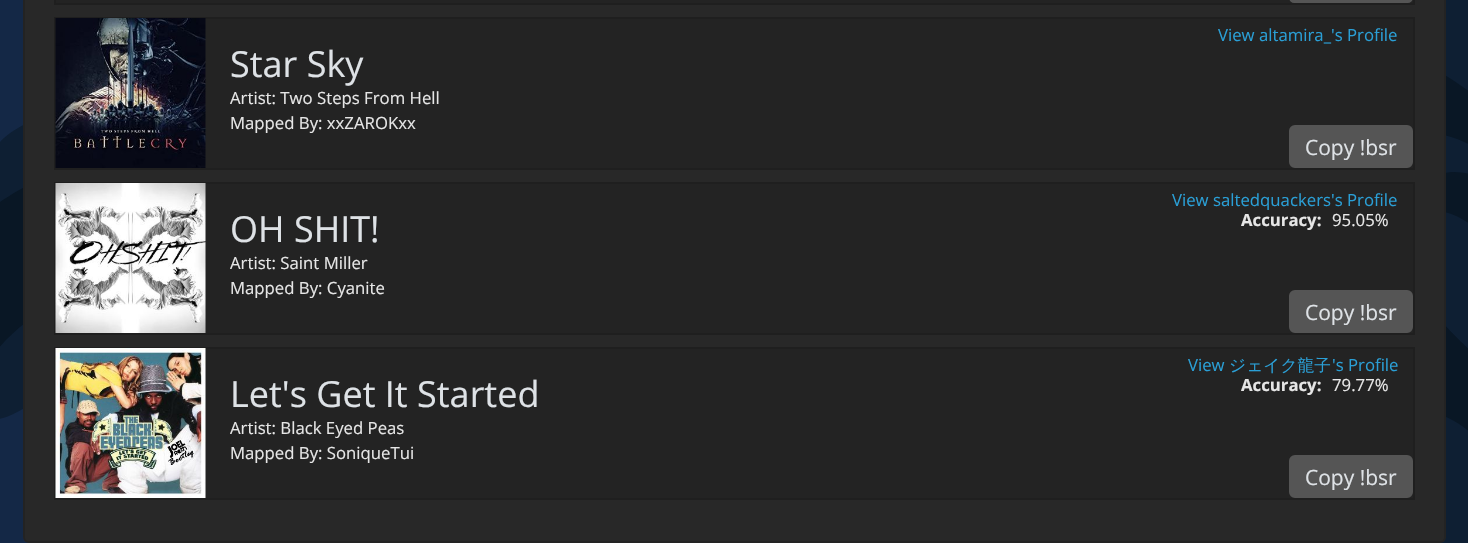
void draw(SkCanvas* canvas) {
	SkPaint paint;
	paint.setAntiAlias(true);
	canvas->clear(0xffffffff);
	canvas->drawImageRect(SkImages::DeferredFromEncodedData(SkData::MakeFromFileName("img1.png")), SkRect::MakeXYWH(0, 0, 1468, 543), SkSamplingOptions());
	paint.setColor(0xff282828);
	canvas->drawRoundRect(SkRect::MakeXYWH(23, -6, 1423, 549), 6, 6, paint);
	paint.setStroke(true);
	paint.setStrokeWidth(2);
	paint.setColor(0x1f000000);
	canvas->drawRoundRect(SkRect::MakeXYWH(24, -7, 1421, 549), 5, 5, paint);
	paint.setStroke(false);
	paint.setColor(0xff232323);
	canvas->drawRect(SkRect::MakeXYWH(55, -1, 1359, 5), paint);
	paint.setStroke(true);
	paint.setColor(0xff1f1f1f);
	canvas->drawRect(SkRect::MakeXYWH(55, -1, 1359, 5), paint);
	paint.setStroke(false);
	paint.setColor(0xff555555);
	canvas->drawRoundRect(SkRect::MakeXYWH(1290, -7, 122, 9), 5, 5, paint);
	paint.setStroke(true);
	canvas->drawRoundRect(SkRect::MakeXYWH(1290, -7, 122, 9), 5, 5, paint);
	paint.setStroke(false);
	paint.setColor(0xff232323);
	canvas->drawRect(SkRect::MakeXYWH(205, 19, 1208, 149), paint);
	paint.setStroke(true);
	paint.setColor(0xff1f1f1f);
	canvas->drawRect(SkRect::MakeXYWH(55, 18, 1359, 151), paint);
	canvas->drawImageRect(SkImages::DeferredFromEncodedData(SkData::MakeFromFileName("img2.png")), SkRect::MakeXYWH(55, 18, 151, 150), SkSamplingOptions());
	SkFont f1(fontMgr->matchFamilyStyle("Open Sans", SkFontStyle::Normal()), 16.75);
	f1.setSubpixel(true);
	paint.setStroke(false);
	paint.setColor(0xff2a9fd6);
	canvas->drawString("View altamira_'s Profile", 1218, 41, f1, paint);
	SkFont f2(fontMgr->matchFamilyStyle("Open Sans", SkFontStyle::Normal()), 36);
	f2.setSubpixel(true);
	paint.setColor(0xffdee2e6);
	canvas->drawString("Star Sky", 230, 77, f2, paint);
	paint.setColor(0xffe6e6e6);
	canvas->drawString("Artist: Two Steps From Hell", 230, 104, f1, paint);
	canvas->drawString("Mapped By: xxZAROKxx", 230, 129, f1, paint);
	paint.setColor(0xff555555);
	canvas->drawRoundRect(SkRect::MakeXYWH(1290, 126, 122, 41), 5, 5, paint);
	paint.setStroke(true);
	canvas->drawRoundRect(SkRect::MakeXYWH(1290, 126, 122, 41), 5, 5, paint);
	SkFont f3(fontMgr->matchFamilyStyle("Open Sans", SkFontStyle::Normal()), 21);
	f3.setSubpixel(true);
	paint.setStroke(false);
	paint.setColor(0xffdee2e6);
	canvas->drawString("Copy !bsr", 1305, 155, f3, paint);
	paint.setColor(0xff232323);
	canvas->drawRect(SkRect::MakeXYWH(205, 184, 1208, 149), paint);
	paint.setStroke(true);
	paint.setColor(0xff1f1f1f);
	canvas->drawRect(SkRect::MakeXYWH(55, 183, 1359, 151), paint);
	canvas->drawImageRect(SkImages::DeferredFromEncodedData(SkData::MakeFromFileName("img3.png")), SkRect::MakeXYWH(55, 183, 151, 150), SkSamplingOptions());
	paint.setStroke(false);
	paint.setColor(0xff2a9fd6);
	canvas->drawString("View saltedquackers's Profile", 1172, 206, f1, paint);
	paint.setColor(0xffdee2e6);
	canvas->drawString("OH SHIT!", 230, 242, f2, paint);
	SkFont f4(fontMgr->matchFamilyStyle("Open Sans", SkFontStyle::Bold()), 16.75);
	f4.setSubpixel(true);
	paint.setColor(0xffe6e6e6);
	canvas->drawString("Accuracy:", 1241, 226, f4, paint);
	canvas->drawString("95.05%", 1332, 226, f1, paint);
	canvas->drawString("Artist: Saint Miller", 230, 269, f1, paint);
	canvas->drawString("Mapped By: Cyanite", 230, 294, f1, paint);
	paint.setColor(0xff555555);
	canvas->drawRoundRect(SkRect::MakeXYWH(1290, 291, 122, 41), 5, 5, paint);
	paint.setStroke(true);
	canvas->drawRoundRect(SkRect::MakeXYWH(1290, 291, 122, 41), 5, 5, paint);
	paint.setStroke(false);
	paint.setColor(0xffdee2e6);
	canvas->drawString("Copy !bsr", 1305, 320, f3, paint);
	paint.setColor(0xff232323);
	canvas->drawRect(SkRect::MakeXYWH(205, 349, 1208, 149), paint);
	paint.setStroke(true);
	paint.setColor(0xff1f1f1f);
	canvas->drawRect(SkRect::MakeXYWH(55, 348, 1359, 151), paint);
	canvas->drawImageRect(SkImages::DeferredFromEncodedData(SkData::MakeFromFileName("img4.png")), SkRect::MakeXYWH(55, 348, 151, 150), SkSamplingOptions());
	paint.setStroke(false);
	paint.setColor(0xff2a9fd6);
	canvas->drawString("View", 1188, 371, f1, paint);
	SkFont f5(fontMgr->matchFamilyStyle("WenQuanYi Zen Hei", SkFontStyle(500, SkFontStyle::kNormal_Width, SkFontStyle::kUpright_Slant)), 16.75);
	f5.setSubpixel(true);
	canvas->drawString("ジェイク龍子", 1229, 371, f5, paint);
	canvas->drawString("'s Profile", 1332, 371, f1, paint);
	paint.setColor(0xffdee2e6);
	canvas->drawString("Let's Get It Started", 230, 407, f2, paint);
	paint.setColor(0xffe6e6e6);
	canvas->drawString("Accuracy:", 1241, 391, f4, paint);
	canvas->drawString("79.77%", 1332, 391, f1, paint);
	canvas->drawString("Artist: Black Eyed Peas", 230, 434, f1, paint);
	canvas->drawString("Mapped By: SoniqueTui", 230, 459, f1, paint);
	paint.setColor(0xff555555);
	canvas->drawRoundRect(SkRect::MakeXYWH(1290, 456, 122, 41), 5, 5, paint);
	paint.setStroke(true);
	canvas->drawRoundRect(SkRect::MakeXYWH(1290, 456, 122, 41), 5, 5, paint);
	paint.setStroke(false);
	paint.setColor(0xffdee2e6);
	canvas->drawString("Copy !bsr", 1305, 485, f3, paint);
}
